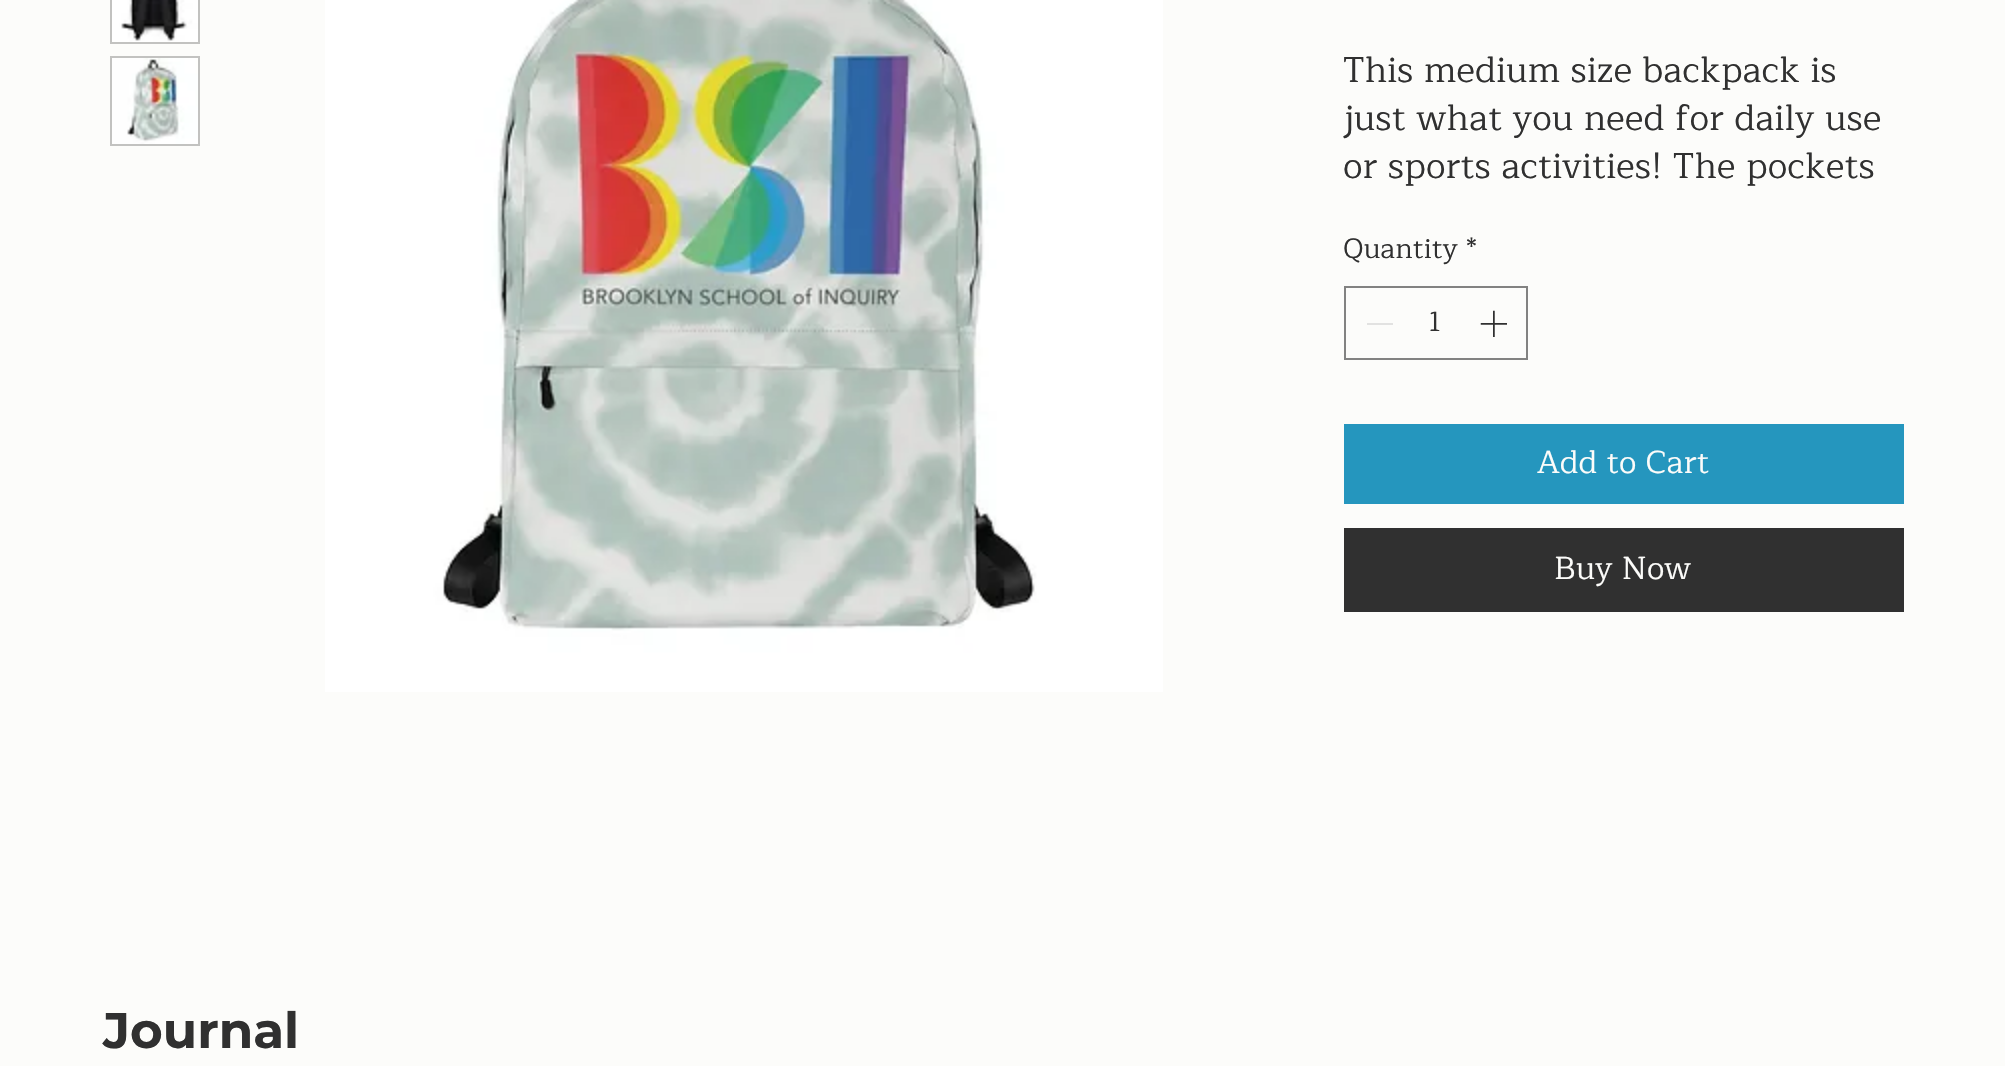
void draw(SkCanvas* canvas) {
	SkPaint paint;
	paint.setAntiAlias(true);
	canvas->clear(0xfffcfcfa);
	paint.setColor(0xffc2c2c0);
	canvas->drawRect(SkRect::MakeXYWH(110, 0, 90, 44), paint);
	canvas->drawImageRect(SkImages::DeferredFromEncodedData(SkData::MakeFromFileName("img1.png")), SkRect::MakeXYWH(112, 0, 86, 42), SkSamplingOptions());
	canvas->drawRect(SkRect::MakeXYWH(110, 56, 90, 90), paint);
	canvas->drawImageRect(SkImages::DeferredFromEncodedData(SkData::MakeFromFileName("img2.png")), SkRect::MakeXYWH(112, 58, 86, 86), SkSamplingOptions());
	canvas->drawImageRect(SkImages::DeferredFromEncodedData(SkData::MakeFromFileName("img3.png")), SkRect::MakeXYWH(325, 0, 838, 692), SkSamplingOptions());
	SkFont f1(fontMgr->matchFamilyStyle("Maitree", SkFontStyle::Normal()), 36);
	f1.setSubpixel(true);
	paint.setColor(0xff303030);
	canvas->drawString("This medium size backpack is", 1343, 82, f1, paint);
	canvas->drawString("just what you need for daily use", 1343, 130, f1, paint);
	canvas->drawString("or sports activities! The pockets", 1343, 178, f1, paint);
	SkFont f2(fontMgr->matchFamilyStyle("Maitree", SkFontStyle::Normal()), 28);
	f2.setSubpixel(true);
	canvas->drawString("Quantity *", 1343, 258, f2, paint);
	paint.setStroke(true);
	paint.setStrokeWidth(2);
	paint.setColor(0xff828281);
	canvas->drawRect(SkRect::MakeXYWH(1345, 287, 182, 72), paint);
	paint.setStroke(false);
	paint.setColor(0xffe2e2e1);
	canvas->drawRect(SkRect::MakeXYWH(1367, 323, 26, 2), paint);
	paint.setColor(0xff303030);
	canvas->drawString("1", 1429, 331, f2, paint);
	canvas->drawImageRect(SkImages::DeferredFromEncodedData(SkData::MakeFromFileName("img4.png")), SkRect::MakeXYWH(1480, 310, 27, 27), SkSamplingOptions());
	paint.setColor(0xff2596be);
	canvas->drawRect(SkRect::MakeXYWH(1344, 424, 560, 80), paint);
	SkFont f3(fontMgr->matchFamilyStyle("Maitree", SkFontStyle::Normal()), 32);
	f3.setSubpixel(true);
	paint.setColor(0xfffcfcfa);
	canvas->drawString("Add to Cart", 1537, 473, f3, paint);
	paint.setColor(0xff303030);
	canvas->drawRect(SkRect::MakeXYWH(1344, 528, 560, 84), paint);
	paint.setColor(0xfffcfcfa);
	canvas->drawString("Buy Now", 1554, 579, f3, paint);
	SkFont f4(fontMgr->matchFamilyStyle("Montserrat", SkFontStyle::Bold()), 50);
	f4.setSubpixel(true);
	paint.setColor(0xff303030);
	canvas->drawString("Journal", 103, 1048, f4, paint);
}
